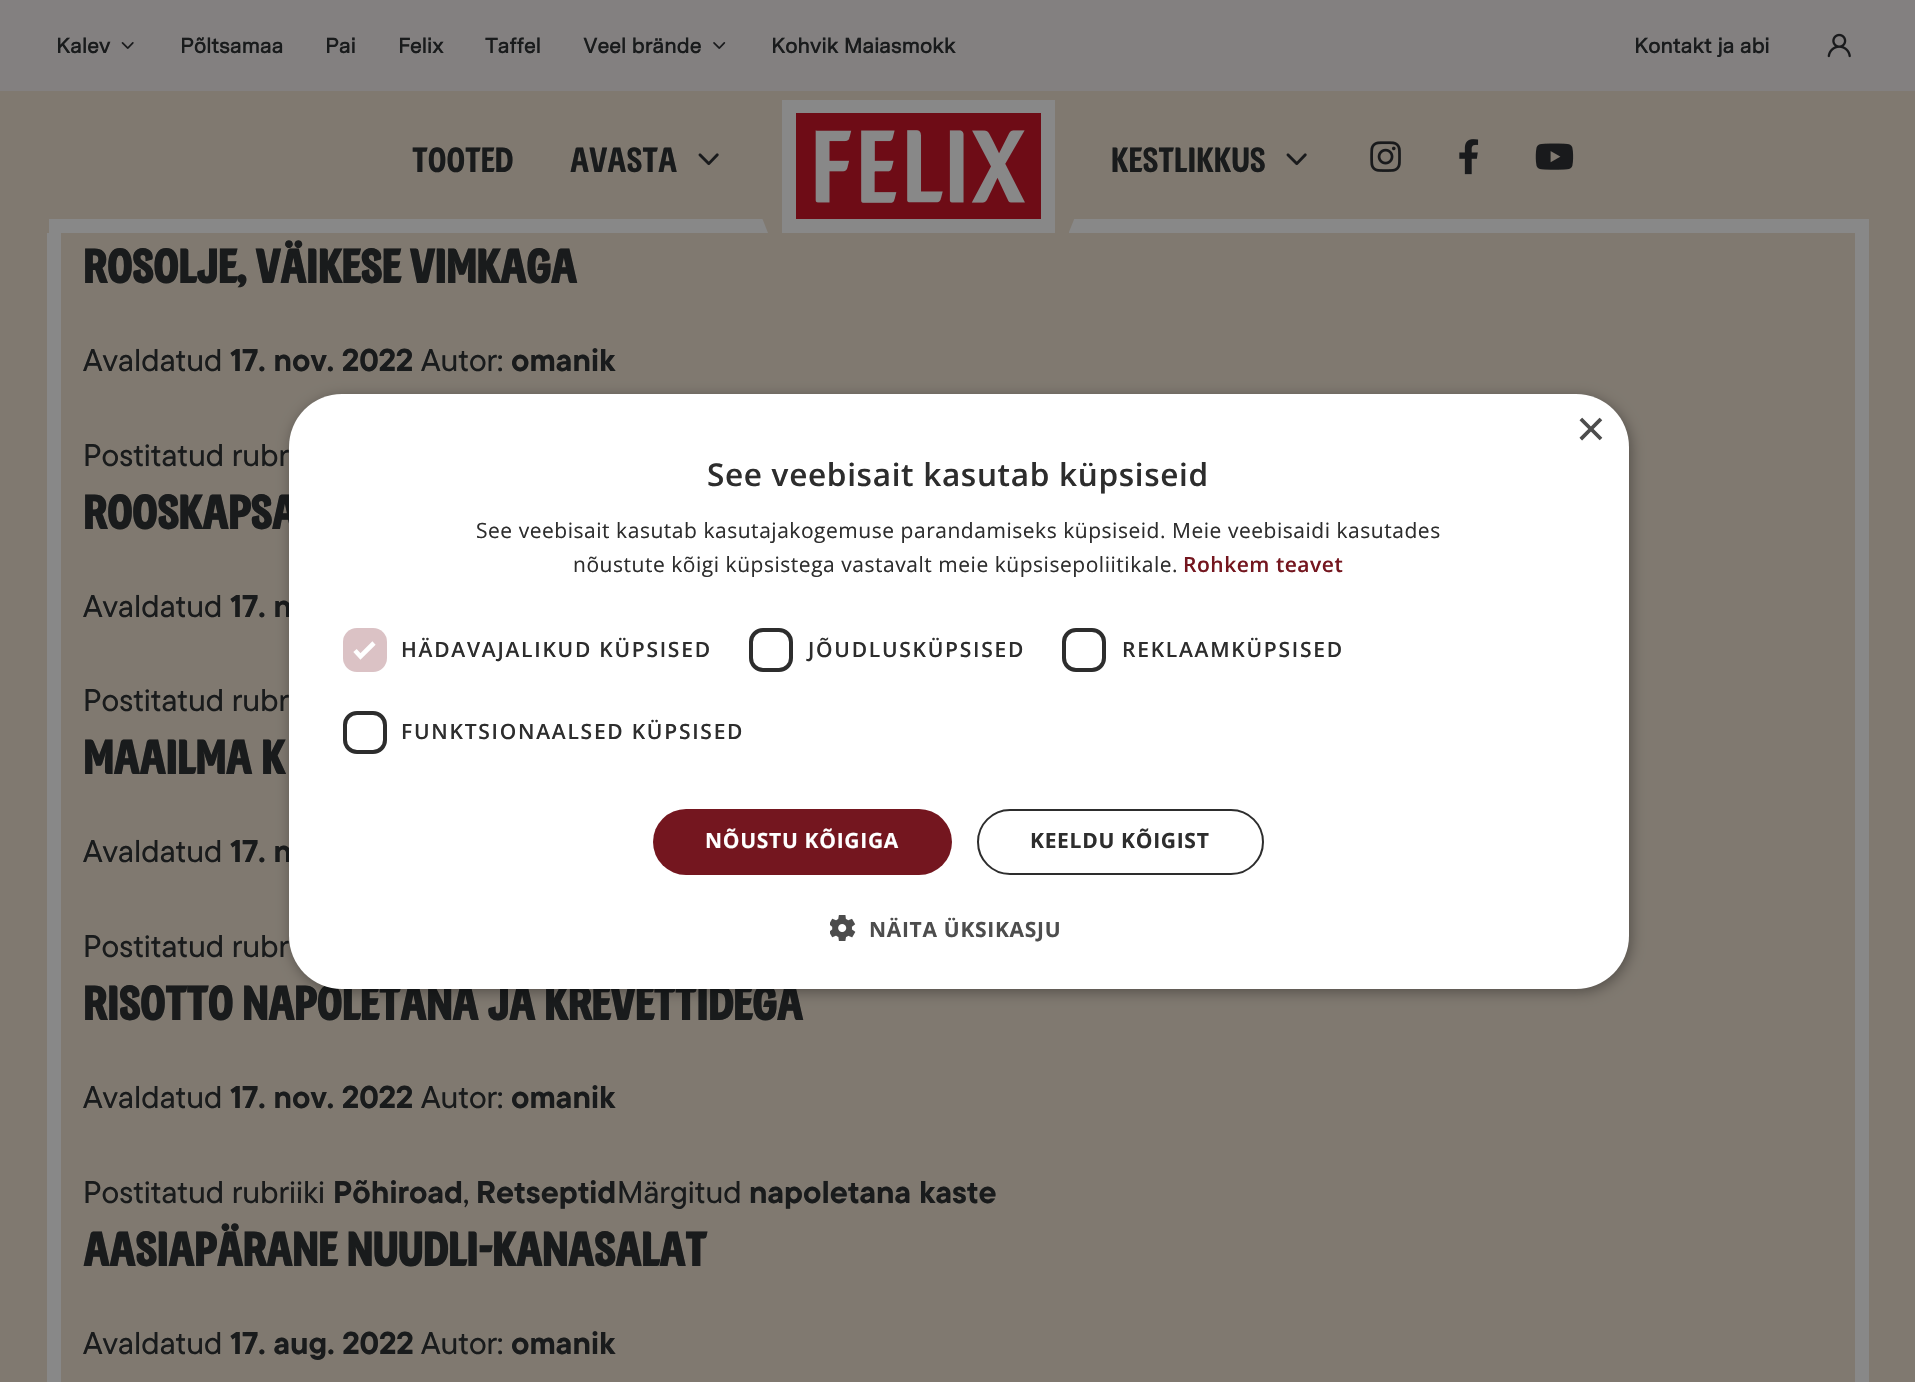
void draw(SkCanvas* canvas) {
	SkPaint paint;
	paint.setAntiAlias(true);
	auto spacedText = [&](const char* s, float x, float y, const SkFont& font, const SkPaint& ink, float letter, float word) {
		std::vector<SkGlyphID> glyphs(font.countText(s, strlen(s), SkTextEncoding::kUTF8));
		std::vector<float> xs(glyphs.size());
		font.textToGlyphs(s, strlen(s), SkTextEncoding::kUTF8, glyphs);
		font.getXPos(glyphs, xs, x);
		float extra = 0;
		for (size_t i = 0; i < glyphs.size(); i++) {
			xs[i] += extra;
			extra += letter + word * (glyphs[i] == font.unicharToGlyph(' '));
		}
		canvas->drawTextBlob(SkTextBlob::MakeFromPosHGlyphs(glyphs, xs, y, font), 0, 0, ink);
	};
	auto svgPath = [&](const char* data, bool evenOdd = false) {
		SkPath result = *SkParsePath::FromSVGString(data);
		if (evenOdd) result.setFillType(SkPathFillType::kEvenOdd);
		return result;
	};
	canvas->clear(0xff807970);
	paint.setColor(0xff838080);
	canvas->drawRect(SkRect::MakeXYWH(0, 0, 1915, 91), paint);
	SkFont f1(fontMgr->matchFamilyStyle("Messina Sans", SkFontStyle::Bold()), 21);
	f1.setSubpixel(true);
	paint.setColor(0xff191b1c);
	canvas->drawString("Kalev", 56, 53, f1, paint);
	canvas->drawImageRect(SkImages::DeferredFromEncodedData(SkData::MakeFromFileName("img1.png")), SkRect::MakeXYWH(121, 42, 13, 7), SkSamplingOptions());
	canvas->drawString("Põltsamaa", 180, 53, f1, paint);
	canvas->drawString("Pai", 325, 53, f1, paint);
	canvas->drawString("Felix", 398, 53, f1, paint);
	canvas->drawString("Taffel", 485, 53, f1, paint);
	canvas->drawString("Veel brände", 583, 53, f1, paint);
	canvas->drawImageRect(SkImages::DeferredFromEncodedData(SkData::MakeFromFileName("img2.png")), SkRect::MakeXYWH(713, 42, 13, 7), SkSamplingOptions());
	canvas->drawString("Kohvik Maiasmokk", 771, 53, f1, paint);
	canvas->drawString("Kontakt ja abi", 1634, 53, f1, paint);
	canvas->drawImageRect(SkImages::DeferredFromEncodedData(SkData::MakeFromFileName("img3.png")), SkRect::MakeXYWH(1827, 33, 24, 25), SkSamplingOptions());
	SkFont f2(fontMgr->matchFamilyStyle("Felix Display", SkFontStyle::Normal()), 35);
	f2.setSubpixel(true);
	canvas->drawString("Tooted", 412, 172, f2, paint);
	canvas->drawString("Avasta", 570, 172, f2, paint);
	canvas->drawImageRect(SkImages::DeferredFromEncodedData(SkData::MakeFromFileName("img4.png")), SkRect::MakeXYWH(698, 153, 21, 13), SkSamplingOptions());
	paint.setColor(0xff888888);
	canvas->drawRect(SkRect::MakeXYWH(49, 219, 1820, 14), paint);
	paint.setColor(0xff807970);
	canvas->drawPath(svgPath("M768 91H740V162L768 233Z"), paint);
	canvas->drawRect(SkRect::MakeXYWH(768, 219, 301, 14), paint);
	canvas->drawImageRect(SkImages::DeferredFromEncodedData(SkData::MakeFromFileName("img5.png")), SkRect::MakeXYWH(782, 100, 273, 133), SkSamplingOptions());
	canvas->drawPath(svgPath("M1069 91V232L1097 162V91Z"), paint);
	paint.setColor(0xff191b1c);
	canvas->drawString("Kestlikkus", 1111, 172, f2, paint);
	canvas->drawImageRect(SkImages::DeferredFromEncodedData(SkData::MakeFromFileName("img4.png")), SkRect::MakeXYWH(1286, 153, 21, 13), SkSamplingOptions());
	canvas->drawImageRect(SkImages::DeferredFromEncodedData(SkData::MakeFromFileName("img6.png")), SkRect::MakeXYWH(1370, 141, 31, 31), SkSamplingOptions());
	canvas->drawImageRect(SkImages::DeferredFromEncodedData(SkData::MakeFromFileName("img7.png")), SkRect::MakeXYWH(1459, 139, 20, 36), SkSamplingOptions());
	canvas->drawImageRect(SkImages::DeferredFromEncodedData(SkData::MakeFromFileName("img8.png")), SkRect::MakeXYWH(1535, 143, 39, 27), SkSamplingOptions());
	paint.setColor(0xff888888);
	canvas->drawRect(SkRect::MakeXYWH(47, 233, 14, 1149), paint);
	SkFont f3(fontMgr->matchFamilyStyle("Felix Display", SkFontStyle::Bold()), 47.25);
	f3.setSubpixel(true);
	paint.setColor(0xff191b1c);
	canvas->drawString("Rosolje, väikese vimkaga", 83, 283, f3, paint);
	SkFont f4(fontMgr->matchFamilyStyle("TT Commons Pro", SkFontStyle(500, SkFontStyle::kNormal_Width, SkFontStyle::kUpright_Slant)), 31.5);
	f4.setSubpixel(true);
	canvas->drawString("Avaldatud", 83, 371, f4, paint);
	SkFont f5(fontMgr->matchFamilyStyle("TT Commons Pro", SkFontStyle::Bold()), 31.5);
	f5.setSubpixel(true);
	canvas->drawString("17. nov. 2022", 230, 371, f5, paint);
	canvas->drawString("Autor:", 421, 371, f4, paint);
	canvas->drawString("omanik", 511, 371, f5, paint);
	canvas->drawString("Postitatud rubr", 83, 466, f4, paint);
	paint.setColor(0xff888888);
	canvas->drawRect(SkRect::MakeXYWH(1855, 233, 14, 1149), paint);
	paint.setColor(0xff191b1c);
	canvas->drawString("Rooskapsa", 83, 529, f3, paint);
	canvas->drawString("Avaldatud", 83, 617, f4, paint);
	canvas->drawString("17. n", 230, 617, f5, paint);
	canvas->drawString("Postitatud rubr", 83, 711, f4, paint);
	canvas->drawString("Maailma k", 83, 774, f3, paint);
	canvas->drawString("Avaldatud", 83, 862, f4, paint);
	canvas->drawString("17. n", 230, 862, f5, paint);
	canvas->drawString("Postitatud rubr", 83, 957, f4, paint);
	canvas->drawString("Risotto napoletana ja krevettidega", 83, 1020, f3, paint);
	canvas->drawString("Avaldatud", 83, 1108, f4, paint);
	canvas->drawString("17. nov. 2022", 230, 1108, f5, paint);
	canvas->drawString("Autor:", 421, 1108, f4, paint);
	canvas->drawString("omanik", 511, 1108, f5, paint);
	canvas->drawString("Postitatud rubriiki", 83, 1203, f4, paint);
	canvas->drawString("Põhiroad", 333, 1203, f5, paint);
	canvas->drawString(",", 463, 1203, f4, paint);
	canvas->drawString("Retseptid", 476, 1203, f5, paint);
	canvas->drawString("Märgitud", 617, 1203, f4, paint);
	canvas->drawString("napoletana kaste", 749, 1203, f5, paint);
	canvas->drawString("Aasiapärane nuudli-kanasalat", 83, 1266, f3, paint);
	canvas->drawString("Avaldatud", 83, 1354, f4, paint);
	canvas->drawString("17. aug. 2022", 230, 1354, f5, paint);
	canvas->drawString("Autor:", 421, 1354, f4, paint);
	canvas->drawString("omanik", 511, 1354, f5, paint);
	paint.setColor(0x59000000);
	paint.setMaskFilter(SkMaskFilter::MakeBlur(kNormal_SkBlurStyle, 7));
	canvas->drawRoundRect(SkRect::MakeXYWH(291, 397, 1340, 595), 53, 53, paint);
	paint.setMaskFilter(nullptr);
	paint.setColor(0xffffffff);
	canvas->drawRoundRect(SkRect::MakeXYWH(289, 394, 1340, 595), 53, 53, paint);
	SkFont f6(fontMgr->matchFamilyStyle("Liberation Sans", SkFontStyle::Normal()), 51);
	f6.setSubpixel(true);
	paint.setColor(0xff4d4d4d);
	canvas->drawString("×", 1576, 446, f6, paint);
	SkFont f7(fontMgr->matchFamilyStyle("Open Sans", SkFontStyle(600, SkFontStyle::kNormal_Width, SkFontStyle::kUpright_Slant)), 31.5);
	f7.setSubpixel(true);
	paint.setColor(0xff2d2d2d);
	spacedText("See veebisait kasutab küpsiseid", 707, 486, f7, paint, 0.7, 0);
	SkFont f8(fontMgr->matchFamilyStyle("Open Sans", SkFontStyle::Normal()), 21);
	f8.setSubpixel(true);
	spacedText("See veebisait kasutab kasutajakogemuse parandamiseks küpsiseid. Meie veebisaidi kasutades", 476, 538, f8, paint, 0.53, 0);
	spacedText("nõustute kõigi küpsistega vastavalt meie küpsisepoliitikale.", 573, 572, f8, paint, 0.53, 0);
	SkFont f9(fontMgr->matchFamilyStyle("Open Sans", SkFontStyle(600, SkFontStyle::kNormal_Width, SkFontStyle::kUpright_Slant)), 21);
	f9.setSubpixel(true);
	paint.setColor(0xff74161f);
	spacedText("Rohkem teavet", 1183, 572, f9, paint, 0.53, 0);
	paint.setColor(0xffdbc2c5);
	canvas->drawRoundRect(SkRect::MakeXYWH(343, 628, 44, 44), 14, 14, paint);
	paint.setStroke(true);
	paint.setStrokeWidth(4.6);
	paint.setColor(0xffffffff);
	canvas->drawPath(svgPath("M355 650.5L360.5 656.5L374 643"), paint);
	paint.setStroke(false);
	paint.setColor(0xff2d2d2d);
	spacedText("HÄDAVAJALIKUD KÜPSISED", 401, 657, f9, paint, 1.75, 0);
	paint.setStroke(true);
	paint.setStrokeWidth(4);
	canvas->drawRoundRect(SkRect::MakeXYWH(751, 630, 40, 40), 12, 12, paint);
	paint.setStroke(false);
	spacedText("JÕUDLUSKÜPSISED", 808, 657, f9, paint, 1.75, 0);
	paint.setStroke(true);
	canvas->drawRoundRect(SkRect::MakeXYWH(1064, 630, 40, 40), 12, 12, paint);
	paint.setStroke(false);
	spacedText("REKLAAMKÜPSISED", 1122, 657, f9, paint, 1.75, 0);
	paint.setStroke(true);
	canvas->drawRoundRect(SkRect::MakeXYWH(345, 713, 40, 39), 12, 12, paint);
	paint.setStroke(false);
	spacedText("FUNKTSIONAALSED KÜPSISED", 401, 739, f9, paint, 1.75, 0);
	paint.setColor(0xff74161f);
	canvas->drawRoundRect(SkRect::MakeXYWH(653, 809, 299, 66), 33, 33, paint);
	SkFont f10(fontMgr->matchFamilyStyle("Open Sans", SkFontStyle::Bold()), 21);
	f10.setSubpixel(true);
	paint.setColor(0xffffffff);
	spacedText("NÕUSTU KÕIGIGA", 705, 848, f10, paint, 0.7, 0);
	paint.setStroke(true);
	paint.setStrokeWidth(2);
	paint.setColor(0xff2d2d2d);
	canvas->drawRoundRect(SkRect::MakeXYWH(978, 810, 285, 64), 32, 32, paint);
	paint.setStroke(false);
	spacedText("KEELDU KÕIGIST", 1030, 848, f10, paint, 0.7, 0);
	canvas->drawImageRect(SkImages::DeferredFromEncodedData(SkData::MakeFromFileName("img9.png")), SkRect::MakeXYWH(830, 915, 26, 26), SkSamplingOptions());
	paint.setColor(0xff4d4d4d);
	spacedText("NÄITA ÜKSIKASJU", 869, 937, f10, paint, 0.7, 0);
}
